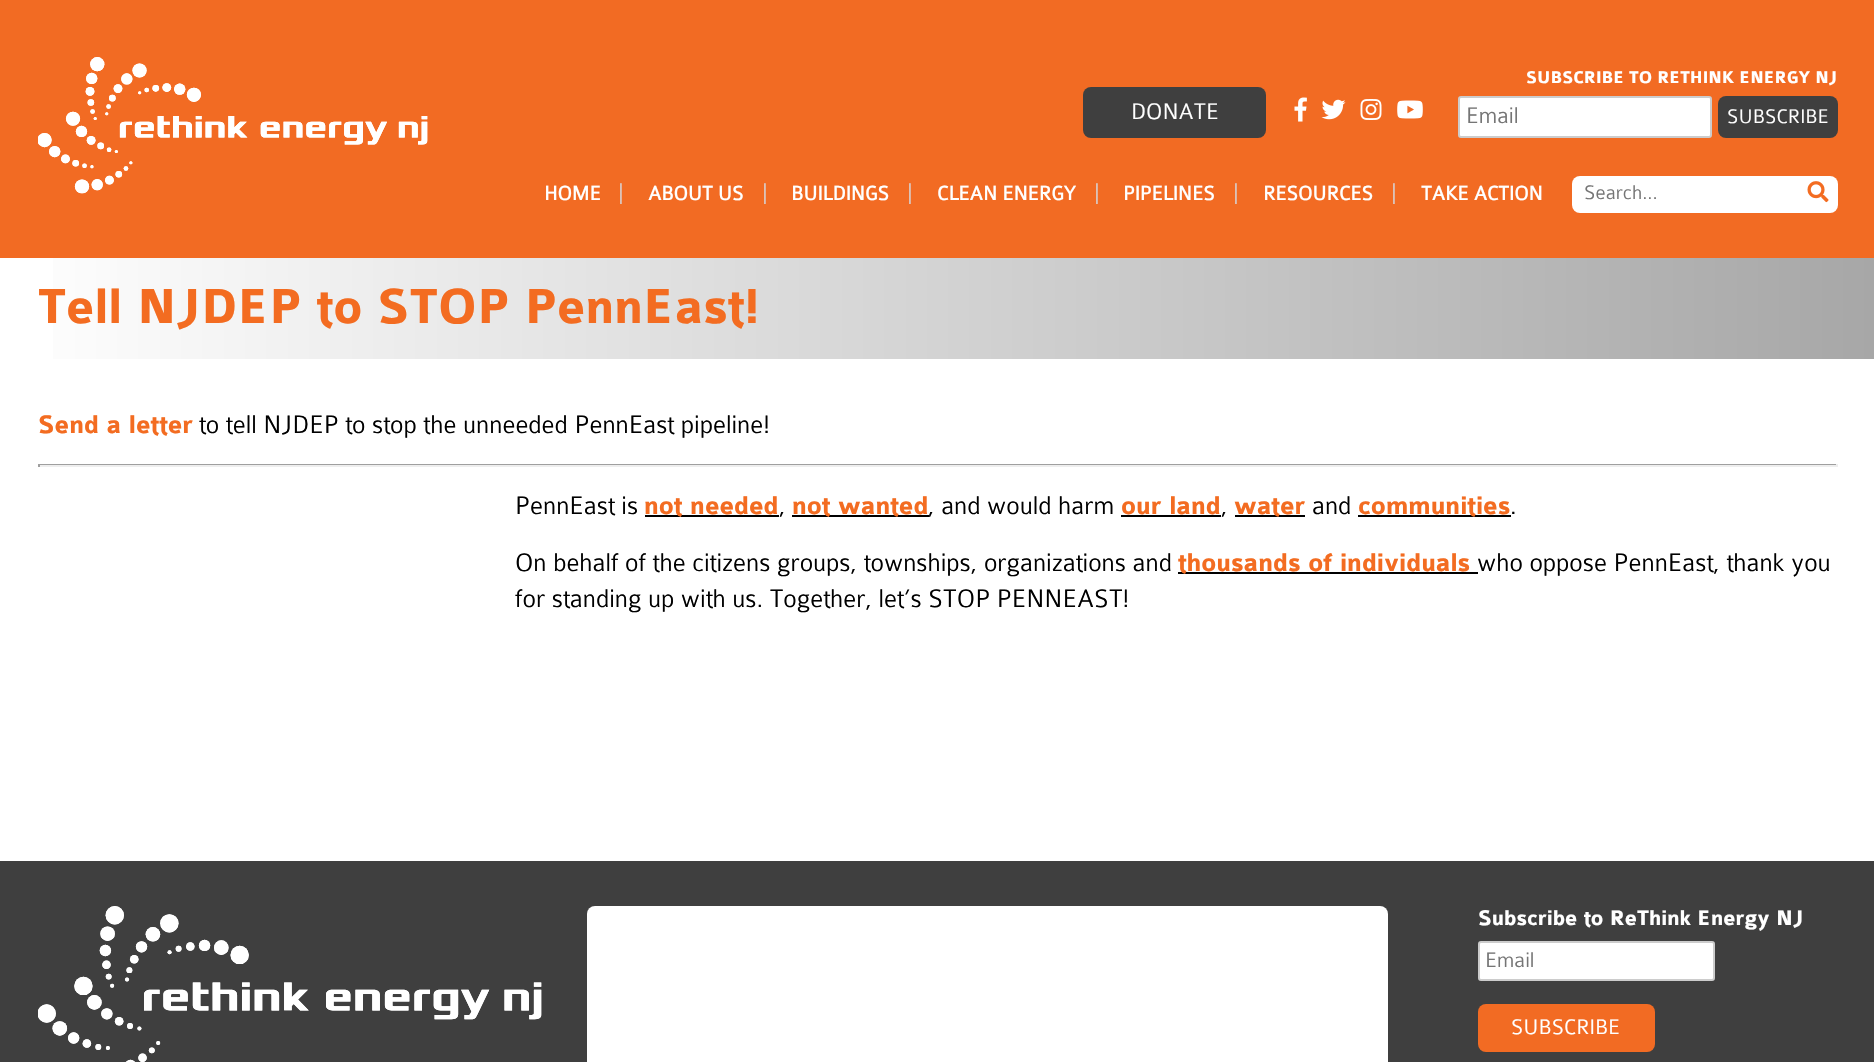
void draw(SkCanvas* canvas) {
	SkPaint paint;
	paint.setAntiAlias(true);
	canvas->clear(0xffffffff);
	paint.setColor(0xfff26b23);
	canvas->drawRect(SkRect::MakeXYWH(0, 0, 1874, 258), paint);
	canvas->drawImageRect(SkImages::DeferredFromEncodedData(SkData::MakeFromFileName("img1.png")), SkRect::MakeXYWH(38, 57, 390, 137), SkSamplingOptions());
	paint.setColor(0xff3f3f3f);
	canvas->drawRoundRect(SkRect::MakeXYWH(1083, 87, 183, 51), 8, 8, paint);
	SkFont f1(fontMgr->matchFamilyStyle("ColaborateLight", SkFontStyle(300, SkFontStyle::kNormal_Width, SkFontStyle::kUpright_Slant)), 24);
	f1.setSubpixel(true);
	paint.setColor(0xffffffff);
	canvas->drawString("DONATE", 1131, 119, f1, paint);
	canvas->drawImageRect(SkImages::DeferredFromEncodedData(SkData::MakeFromFileName("img2.png")), SkRect::MakeXYWH(1294, 97, 13, 25), SkSamplingOptions());
	canvas->drawImageRect(SkImages::DeferredFromEncodedData(SkData::MakeFromFileName("img3.png")), SkRect::MakeXYWH(1321, 99, 25, 21), SkSamplingOptions());
	canvas->drawImageRect(SkImages::DeferredFromEncodedData(SkData::MakeFromFileName("img4.png")), SkRect::MakeXYWH(1360, 99, 22, 21), SkSamplingOptions());
	canvas->drawImageRect(SkImages::DeferredFromEncodedData(SkData::MakeFromFileName("img5.png")), SkRect::MakeXYWH(1397, 100, 26, 19), SkSamplingOptions());
	SkFont f2(fontMgr->matchFamilyStyle("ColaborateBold", SkFontStyle::Bold()), 18);
	f2.setSubpixel(true);
	canvas->drawString("SUBSCRIBE TO RETHINK ENERGY NJ", 1526, 83, f2, paint);
	canvas->drawRoundRect(SkRect::MakeXYWH(1459, 97, 252, 40), 2, 2, paint);
	paint.setStroke(true);
	paint.setStrokeWidth(2);
	paint.setColor(0xffcccccc);
	canvas->drawRoundRect(SkRect::MakeXYWH(1459, 97, 252, 40), 2, 2, paint);
	paint.setStroke(false);
	paint.setColor(0xff757575);
	canvas->drawString("Email", 1466, 123, f1, paint);
	paint.setColor(0xff3f3f3f);
	canvas->drawRoundRect(SkRect::MakeXYWH(1718, 96, 120, 42), 8, 8, paint);
	SkFont f3(fontMgr->matchFamilyStyle("ColaborateLight", SkFontStyle(300, SkFontStyle::kNormal_Width, SkFontStyle::kUpright_Slant)), 21);
	f3.setSubpixel(true);
	paint.setColor(0xffffffff);
	canvas->drawString("SUBSCRIBE", 1727, 123, f3, paint);
	SkFont f4(fontMgr->matchFamilyStyle("ColaborateLight", SkFontStyle::Bold()), 21);
	f4.setSubpixel(true);
	canvas->drawString("HOME", 544, 200, f4, paint);
	paint.setColor(0xffd8d1d1);
	canvas->drawString("|", 618, 200, f1, paint);
	paint.setColor(0xffffffff);
	canvas->drawString("ABOUT US", 648, 200, f4, paint);
	paint.setColor(0xffd8d1d1);
	canvas->drawString("|", 762, 200, f1, paint);
	paint.setColor(0xffffffff);
	canvas->drawString("BUILDINGS", 791, 200, f4, paint);
	paint.setColor(0xffd8d1d1);
	canvas->drawString("|", 907, 200, f1, paint);
	paint.setColor(0xffffffff);
	canvas->drawString("CLEAN ENERGY", 937, 200, f4, paint);
	paint.setColor(0xffd8d1d1);
	canvas->drawString("|", 1094, 200, f1, paint);
	paint.setColor(0xffffffff);
	canvas->drawString("PIPELINES", 1123, 200, f4, paint);
	paint.setColor(0xffd8d1d1);
	canvas->drawString("|", 1233, 200, f1, paint);
	paint.setColor(0xffffffff);
	canvas->drawString("RESOURCES", 1263, 200, f4, paint);
	paint.setColor(0xffd8d1d1);
	canvas->drawString("|", 1391, 200, f1, paint);
	paint.setColor(0xffffffff);
	canvas->drawString("TAKE ACTION", 1421, 200, f4, paint);
	canvas->drawRoundRect(SkRect::MakeXYWH(1572, 176, 266, 37), 8, 8, paint);
	paint.setColor(0xff757575);
	canvas->drawString("Search...", 1584, 199, f3, paint);
	canvas->drawImageRect(SkImages::DeferredFromEncodedData(SkData::MakeFromFileName("img6.png")), SkRect::MakeXYWH(1807, 181, 22, 22), SkSamplingOptions());
	{
		const SkColor colors[] = {0xffffffff, 0xffa7a7a7};
		const float stops[] = {0, 1};
		const SkPoint ends[] = {{0, 308}, {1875, 308}};
		paint.setShader(SkGradientShader::MakeLinear(ends, colors, stops, 2, SkTileMode::kClamp));
		paint.setAlpha(255);
	}
	canvas->drawRect(SkRect::MakeXYWH(53, 258, 1821, 101), paint);
	SkFont f5(fontMgr->matchFamilyStyle("ColaborateBold", SkFontStyle::Bold()), 52.5);
	f5.setSubpixel(true);
	paint.setShader(nullptr);
	paint.setColor(0xfff36c21);
	canvas->drawString("Tell NJDEP to STOP PennEast!", 38, 323, f5, paint);
	SkFont f6(fontMgr->matchFamilyStyle("ColaborateBold", SkFontStyle::Bold()), 27);
	f6.setSubpixel(true);
	canvas->drawString("Send a letter", 38, 433, f6, paint);
	SkFont f7(fontMgr->matchFamilyStyle("ColaborateLight", SkFontStyle(300, SkFontStyle::kNormal_Width, SkFontStyle::kUpright_Slant)), 27);
	f7.setSubpixel(true);
	paint.setColor(0xff000000);
	canvas->drawString("to tell NJDEP to stop the unneeded PennEast pipeline!", 199, 433, f7, paint);
	paint.setColor(0xff9f9f9f);
	canvas->drawRect(SkRect::MakeXYWH(38, 464, 1800, 1), paint);
	paint.setColor(0xffeeeeee);
	canvas->drawRect(SkRect::MakeXYWH(1836, 464, 2, 3), paint);
	canvas->drawRect(SkRect::MakeXYWH(38, 465, 1800, 2), paint);
	paint.setColor(0xff9f9f9f);
	canvas->drawRect(SkRect::MakeXYWH(38, 464, 2, 3), paint);
	paint.setColor(0xff000000);
	canvas->drawString("PennEast is", 515, 514, f7, paint);
	canvas->drawRect(SkRect::MakeXYWH(645, 515, 134, 2), paint);
	paint.setColor(0xfff36c21);
	canvas->drawString("not needed", 644, 514, f6, paint);
	paint.setColor(0xff000000);
	canvas->drawString(",", 779, 514, f7, paint);
	canvas->drawRect(SkRect::MakeXYWH(792, 515, 137, 2), paint);
	paint.setColor(0xfff36c21);
	canvas->drawString("not wanted", 792, 514, f6, paint);
	paint.setColor(0xff000000);
	canvas->drawString(", and would harm", 928, 514, f7, paint);
	paint.setColor(0xfff36c21);
	canvas->drawString("our land", 1121, 514, f6, paint);
	paint.setColor(0xff000000);
	canvas->drawRect(SkRect::MakeXYWH(1121, 515, 100, 2), paint);
	canvas->drawString(",", 1221, 514, f7, paint);
	canvas->drawRect(SkRect::MakeXYWH(1235, 515, 70, 2), paint);
	paint.setColor(0xfff36c21);
	canvas->drawString("water", 1234, 514, f6, paint);
	paint.setColor(0xff000000);
	canvas->drawString("and", 1312, 514, f7, paint);
	canvas->drawRect(SkRect::MakeXYWH(1358, 515, 153, 2), paint);
	paint.setColor(0xfff36c21);
	canvas->drawString("communities", 1358, 514, f6, paint);
	paint.setColor(0xff000000);
	canvas->drawString(".", 1510, 514, f7, paint);
	canvas->drawString("On behalf of the citizens groups, townships, organizations and", 515, 571, f7, paint);
	canvas->drawRect(SkRect::MakeXYWH(1178, 572, 300, 2), paint);
	paint.setColor(0xfff36c21);
	canvas->drawString("thousands of individuals", 1178, 571, f6, paint);
	paint.setColor(0xff000000);
	canvas->drawString("who oppose PennEast, thank you", 1477, 571, f7, paint);
	canvas->drawString("for standing up with us. Together, let’s STOP PENNEAST!", 515, 607, f7, paint);
	paint.setColor(0xff3f3f3f);
	canvas->drawRect(SkRect::MakeXYWH(0, 861, 1874, 201), paint);
	canvas->drawImageRect(SkImages::DeferredFromEncodedData(SkData::MakeFromFileName("img7.png")), SkRect::MakeXYWH(38, 906, 504, 156), SkSamplingOptions());
	paint.setColor(0xffffffff);
	canvas->drawRoundRect(SkRect::MakeXYWH(587, 906, 801, 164), 8, 8, paint);
	SkFont f8(fontMgr->matchFamilyStyle("ColaborateBold", SkFontStyle::Bold()), 22.5);
	f8.setSubpixel(true);
	canvas->drawString("Subscribe to ReThink Energy NJ", 1478, 925, f8, paint);
	canvas->drawRoundRect(SkRect::MakeXYWH(1479, 942, 235, 38), 2, 2, paint);
	paint.setStroke(true);
	paint.setColor(0xffcccccc);
	canvas->drawRoundRect(SkRect::MakeXYWH(1479, 942, 235, 38), 2, 2, paint);
	SkFont f9(fontMgr->matchFamilyStyle("ColaborateLight", SkFontStyle(300, SkFontStyle::kNormal_Width, SkFontStyle::kUpright_Slant)), 22.5);
	f9.setSubpixel(true);
	paint.setStroke(false);
	paint.setColor(0xff757575);
	canvas->drawString("Email", 1485, 967, f9, paint);
	paint.setColor(0xfff26b23);
	canvas->drawRoundRect(SkRect::MakeXYWH(1478, 1004, 177, 48), 8, 8, paint);
	paint.setColor(0xffffffff);
	canvas->drawString("SUBSCRIBE", 1511, 1034, f9, paint);
}
